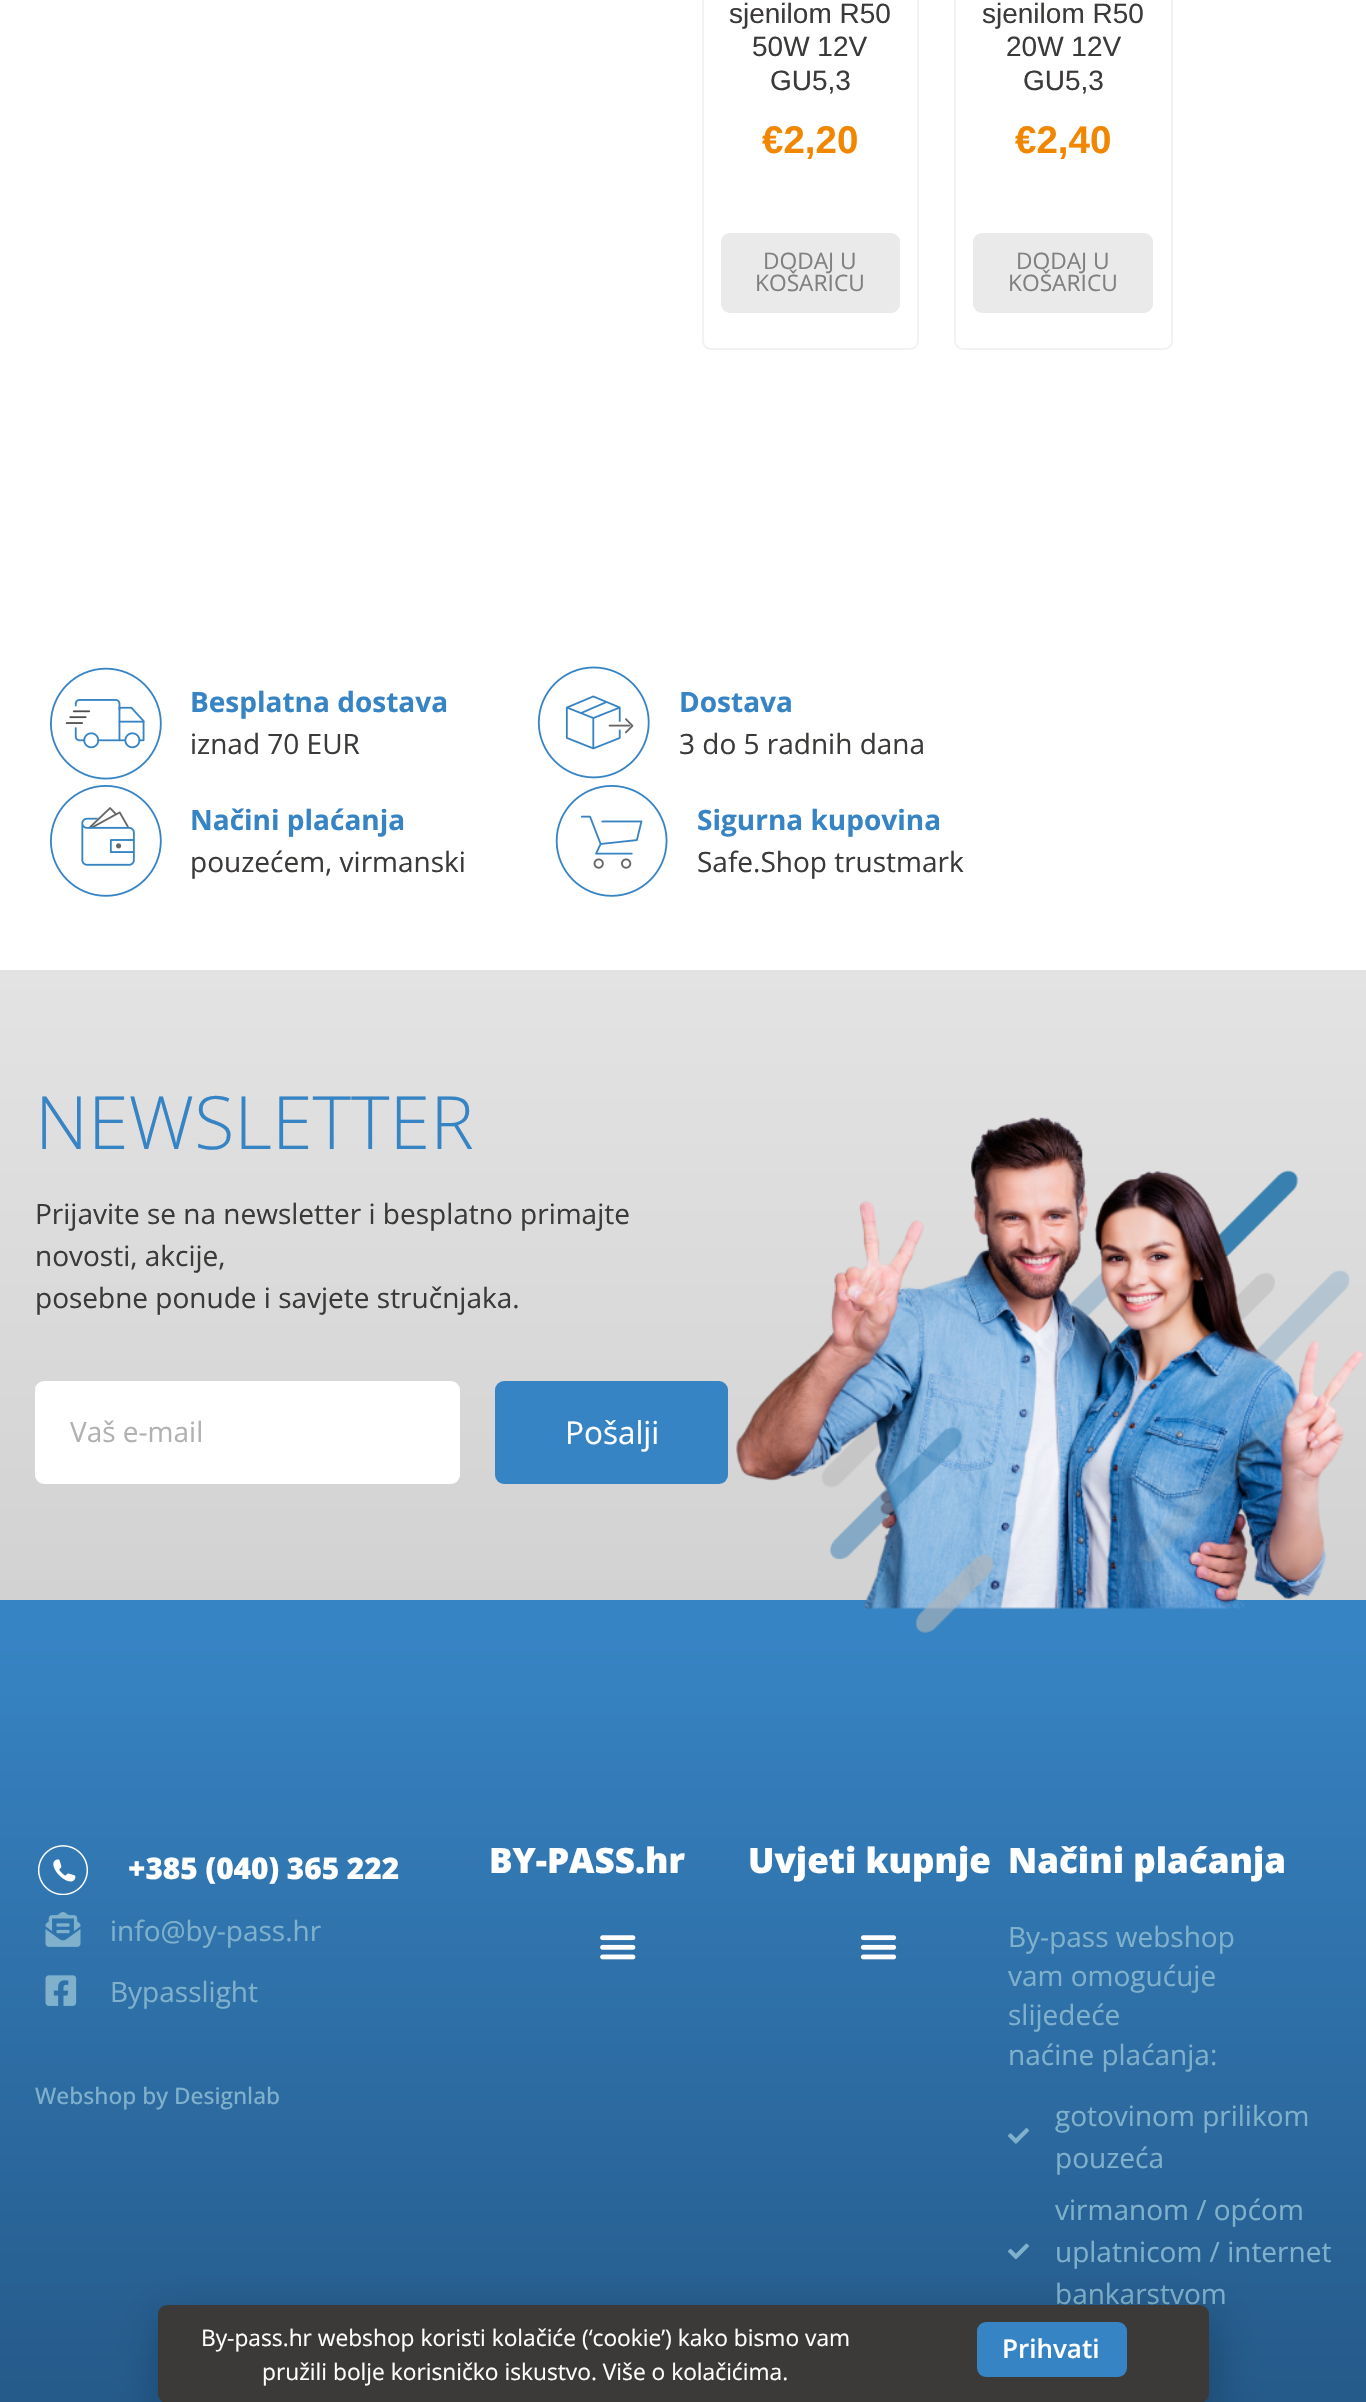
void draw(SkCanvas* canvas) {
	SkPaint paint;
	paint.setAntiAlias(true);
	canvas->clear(0xffffffff);
	paint.setStroke(true);
	paint.setStrokeWidth(2);
	paint.setColor(0xfff2f2f2);
	canvas->drawRoundRect(SkRect::MakeXYWH(703, -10, 215, 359), 8, 8, paint);
	SkFont f1(fontMgr->matchFamilyStyle("Liberation Sans", SkFontStyle::Normal()), 28);
	f1.setSubpixel(true);
	paint.setStroke(false);
	paint.setColor(0xff3b3a39);
	canvas->drawString("sjenilom R50", 729, 23, f1, paint);
	canvas->drawString("50W 12V", 752, 56, f1, paint);
	canvas->drawString("GU5,3", 770, 90, f1, paint);
	SkFont f2(fontMgr->matchFamilyStyle("Liberation Sans", SkFontStyle::Bold()), 38.5);
	f2.setSubpixel(true);
	paint.setColor(0xfff18700);
	canvas->drawString("€2,20", 762, 153, f2, paint);
	paint.setColor(0xffeaeaea);
	canvas->drawRoundRect(SkRect::MakeXYWH(721, 233, 179, 80), 9, 9, paint);
	SkFont f3(fontMgr->matchFamilyStyle("Open Sans", SkFontStyle::Normal()), 22.75);
	f3.setSubpixel(true);
	paint.setColor(0xff808080);
	canvas->drawString("DODAJ U", 763, 269, f3, paint);
	canvas->drawString("KOŠARICU", 755, 291, f3, paint);
	paint.setStroke(true);
	paint.setColor(0xfff2f2f2);
	canvas->drawRoundRect(SkRect::MakeXYWH(955, -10, 217, 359), 8, 8, paint);
	paint.setStroke(false);
	paint.setColor(0xff3b3a39);
	canvas->drawString("sjenilom R50", 982, 23, f1, paint);
	canvas->drawString("20W 12V", 1006, 56, f1, paint);
	canvas->drawString("GU5,3", 1023, 90, f1, paint);
	paint.setColor(0xfff18700);
	canvas->drawString("€2,40", 1015, 153, f2, paint);
	paint.setColor(0xffeaeaea);
	canvas->drawRoundRect(SkRect::MakeXYWH(973, 233, 180, 80), 9, 9, paint);
	paint.setColor(0xff808080);
	canvas->drawString("DODAJ U", 1016, 269, f3, paint);
	canvas->drawString("KOŠARICU", 1008, 291, f3, paint);
	canvas->drawImageRect(SkImages::DeferredFromEncodedData(SkData::MakeFromFileName("img1.png")), SkRect::MakeXYWH(50, 667, 112, 113), SkSamplingOptions());
	SkFont f4(fontMgr->matchFamilyStyle("Open Sans", SkFontStyle::Bold()), 28);
	f4.setSubpixel(true);
	paint.setColor(0xff3784c4);
	canvas->drawString("Besplatna dostava", 190, 712, f4, paint);
	SkFont f5(fontMgr->matchFamilyStyle("Open Sans", SkFontStyle::Normal()), 28);
	f5.setSubpixel(true);
	paint.setColor(0xff3b3a39);
	canvas->drawString("iznad 70 EUR", 190, 754, f5, paint);
	canvas->drawImageRect(SkImages::DeferredFromEncodedData(SkData::MakeFromFileName("img2.png")), SkRect::MakeXYWH(537, 666, 113, 113), SkSamplingOptions());
	paint.setColor(0xff3784c4);
	canvas->drawString("Dostava", 679, 712, f4, paint);
	paint.setColor(0xff3b3a39);
	canvas->drawString("3 do 5 radnih dana", 679, 754, f5, paint);
	canvas->drawImageRect(SkImages::DeferredFromEncodedData(SkData::MakeFromFileName("img3.png")), SkRect::MakeXYWH(50, 785, 112, 112), SkSamplingOptions());
	paint.setColor(0xff3784c4);
	canvas->drawString("Načini plaćanja", 190, 830, f4, paint);
	paint.setColor(0xff3b3a39);
	canvas->drawString("pouzećem, virmanski", 190, 872, f5, paint);
	canvas->drawImageRect(SkImages::DeferredFromEncodedData(SkData::MakeFromFileName("img4.png")), SkRect::MakeXYWH(555, 785, 113, 112), SkSamplingOptions());
	paint.setColor(0xff3784c4);
	canvas->drawString("Sigurna kupovina", 697, 830, f4, paint);
	paint.setColor(0xff3b3a39);
	canvas->drawString("Safe.Shop trustmark", 697, 872, f5, paint);
	{
		const SkColor colors[] = {0xffe3e3e3, 0xffd2d2d2};
		const float stops[] = {0, 1};
		const SkPoint ends[] = {{683, 970}, {683, 1600}};
		paint.setShader(SkGradientShader::MakeLinear(ends, colors, stops, 2, SkTileMode::kClamp));
		paint.setAlpha(255);
	}
	canvas->drawRect(SkRect::MakeXYWH(0, 970, 1366, 630), paint);
	SkFont f6(fontMgr->matchFamilyStyle("Open Sans", SkFontStyle(300, SkFontStyle::kNormal_Width, SkFontStyle::kUpright_Slant)), 73.5);
	f6.setSubpixel(true);
	paint.setShader(nullptr);
	paint.setColor(0xff3784c4);
	canvas->drawString("NEWSLETTER", 35, 1149, f6, paint);
	paint.setColor(0xff3b3a39);
	canvas->drawString("Prijavite se na newsletter i besplatno primajte", 35, 1224, f5, paint);
	canvas->drawString("novosti, akcije,", 35, 1266, f5, paint);
	canvas->drawString("posebne ponude i savjete stručnjaka.", 35, 1308, f5, paint);
	paint.setColor(0xffffffff);
	canvas->drawRoundRect(SkRect::MakeXYWH(35, 1381, 425, 103), 9, 9, paint);
	paint.setColor(0xffb1b1b1);
	canvas->drawString("Vaš e-mail", 70, 1442, f5, paint);
	paint.setColor(0xff3784c4);
	canvas->drawRoundRect(SkRect::MakeXYWH(495, 1381, 233, 103), 9, 9, paint);
	SkFont f7(fontMgr->matchFamilyStyle("Open Sans", SkFontStyle::Normal()), 31.5);
	f7.setSubpixel(true);
	paint.setColor(0xffffffff);
	canvas->drawString("Pošalji", 565, 1444, f7, paint);
	{
		const SkColor colors[] = {0xff3784c4, 0xff255a8a};
		const float stops[] = {0.04, 1};
		const SkPoint ends[] = {{683, 1600}, {683, 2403}};
		paint.setShader(SkGradientShader::MakeLinear(ends, colors, stops, 2, SkTileMode::kClamp));
		paint.setAlpha(255);
	}
	canvas->drawRect(SkRect::MakeXYWH(0, 1600, 1366, 802), paint);
	canvas->drawImageRect(SkImages::DeferredFromEncodedData(SkData::MakeFromFileName("img5.png")), SkRect::MakeXYWH(736, 1117, 628, 516), SkSamplingOptions());
	canvas->drawImageRect(SkImages::DeferredFromEncodedData(SkData::MakeFromFileName("img6.png")), SkRect::MakeXYWH(37, 1845, 52, 50), SkSamplingOptions());
	SkFont f8(fontMgr->matchFamilyStyle("Open Sans", SkFontStyle(800, SkFontStyle::kNormal_Width, SkFontStyle::kUpright_Slant)), 29.75);
	f8.setSubpixel(true);
	paint.setShader(nullptr);
	paint.setColor(0xffffffff);
	canvas->drawString("+385 (040) 365 222", 128, 1879, f8, paint);
	canvas->drawImageRect(SkImages::DeferredFromEncodedData(SkData::MakeFromFileName("img7.png")), SkRect::MakeXYWH(45, 1912, 36, 35), SkSamplingOptions());
	paint.setColor(0xff80b1cc);
	canvas->drawString("info@by-pass.hr", 110, 1941, f5, paint);
	canvas->drawImageRect(SkImages::DeferredFromEncodedData(SkData::MakeFromFileName("img8.png")), SkRect::MakeXYWH(45, 1975, 32, 31), SkSamplingOptions());
	canvas->drawString("Bypasslight", 110, 2002, f5, paint);
	SkFont f9(fontMgr->matchFamilyStyle("Open Sans", SkFontStyle(500, SkFontStyle::kNormal_Width, SkFontStyle::kUpright_Slant)), 22.75);
	f9.setSubpixel(true);
	canvas->drawString("Webshop by Designlab", 35, 2104, f9, paint);
	SkFont f10(fontMgr->matchFamilyStyle("Open Sans", SkFontStyle(800, SkFontStyle::kNormal_Width, SkFontStyle::kUpright_Slant)), 35);
	f10.setSubpixel(true);
	paint.setColor(0xffffffff);
	canvas->drawString("BY-PASS.hr", 489, 1873, f10, paint);
	canvas->drawImageRect(SkImages::DeferredFromEncodedData(SkData::MakeFromFileName("img9.png")), SkRect::MakeXYWH(600, 1935, 36, 25), SkSamplingOptions());
	canvas->drawString("Uvjeti kupnje", 748, 1873, f10, paint);
	canvas->drawImageRect(SkImages::DeferredFromEncodedData(SkData::MakeFromFileName("img10.png")), SkRect::MakeXYWH(860, 1935, 37, 25), SkSamplingOptions());
	canvas->drawString("Načini plaćanja", 1008, 1873, f10, paint);
	paint.setColor(0xff80b1cc);
	canvas->drawString("By-pass webshop", 1008, 1947, f5, paint);
	canvas->drawString("vam omogućuje", 1008, 1986, f5, paint);
	canvas->drawString("slijedeće", 1008, 2025, f5, paint);
	canvas->drawString("naćine plaćanja:", 1008, 2065, f5, paint);
	canvas->drawImageRect(SkImages::DeferredFromEncodedData(SkData::MakeFromFileName("img11.png")), SkRect::MakeXYWH(1008, 2128, 21, 16), SkSamplingOptions());
	canvas->drawString("gotovinom prilikom", 1055, 2126, f5, paint);
	canvas->drawString("pouzeća", 1055, 2168, f5, paint);
	canvas->drawImageRect(SkImages::DeferredFromEncodedData(SkData::MakeFromFileName("img12.png")), SkRect::MakeXYWH(1008, 2243, 21, 17), SkSamplingOptions());
	canvas->drawString("virmanom / općom", 1055, 2220, f5, paint);
	canvas->drawString("uplatnicom / internet", 1055, 2262, f5, paint);
	canvas->drawString("bankarstvom", 1055, 2304, f5, paint);
	paint.setColor(0x33000000);
	paint.setMaskFilter(SkMaskFilter::MakeBlur(kNormal_SkBlurStyle, 20));
	canvas->drawRoundRect(SkRect::MakeXYWH(156, 2314, 1062, 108), 14, 14, paint);
	paint.setMaskFilter(nullptr);
	paint.setColor(0xff3b3a39);
	canvas->drawRoundRect(SkRect::MakeXYWH(158, 2305, 1051, 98), 9, 9, paint);
	paint.setColor(0xffffffff);
	canvas->drawString("By-pass.hr webshop koristi kolačiće (‘cookie’) kako bismo vam", 201, 2346, f3, paint);
	canvas->drawString("pružili bolje korisničko iskustvo. Više o kolačićima.", 262, 2380, f3, paint);
	paint.setColor(0xff3784c4);
	canvas->drawRoundRect(SkRect::MakeXYWH(977, 2322, 150, 55), 9, 9, paint);
	SkFont f11(fontMgr->matchFamilyStyle("Open Sans", SkFontStyle(600, SkFontStyle::kNormal_Width, SkFontStyle::kUpright_Slant)), 26);
	f11.setSubpixel(true);
	paint.setColor(0xffffffff);
	canvas->drawString("Prihvati", 1002, 2358, f11, paint);
}
